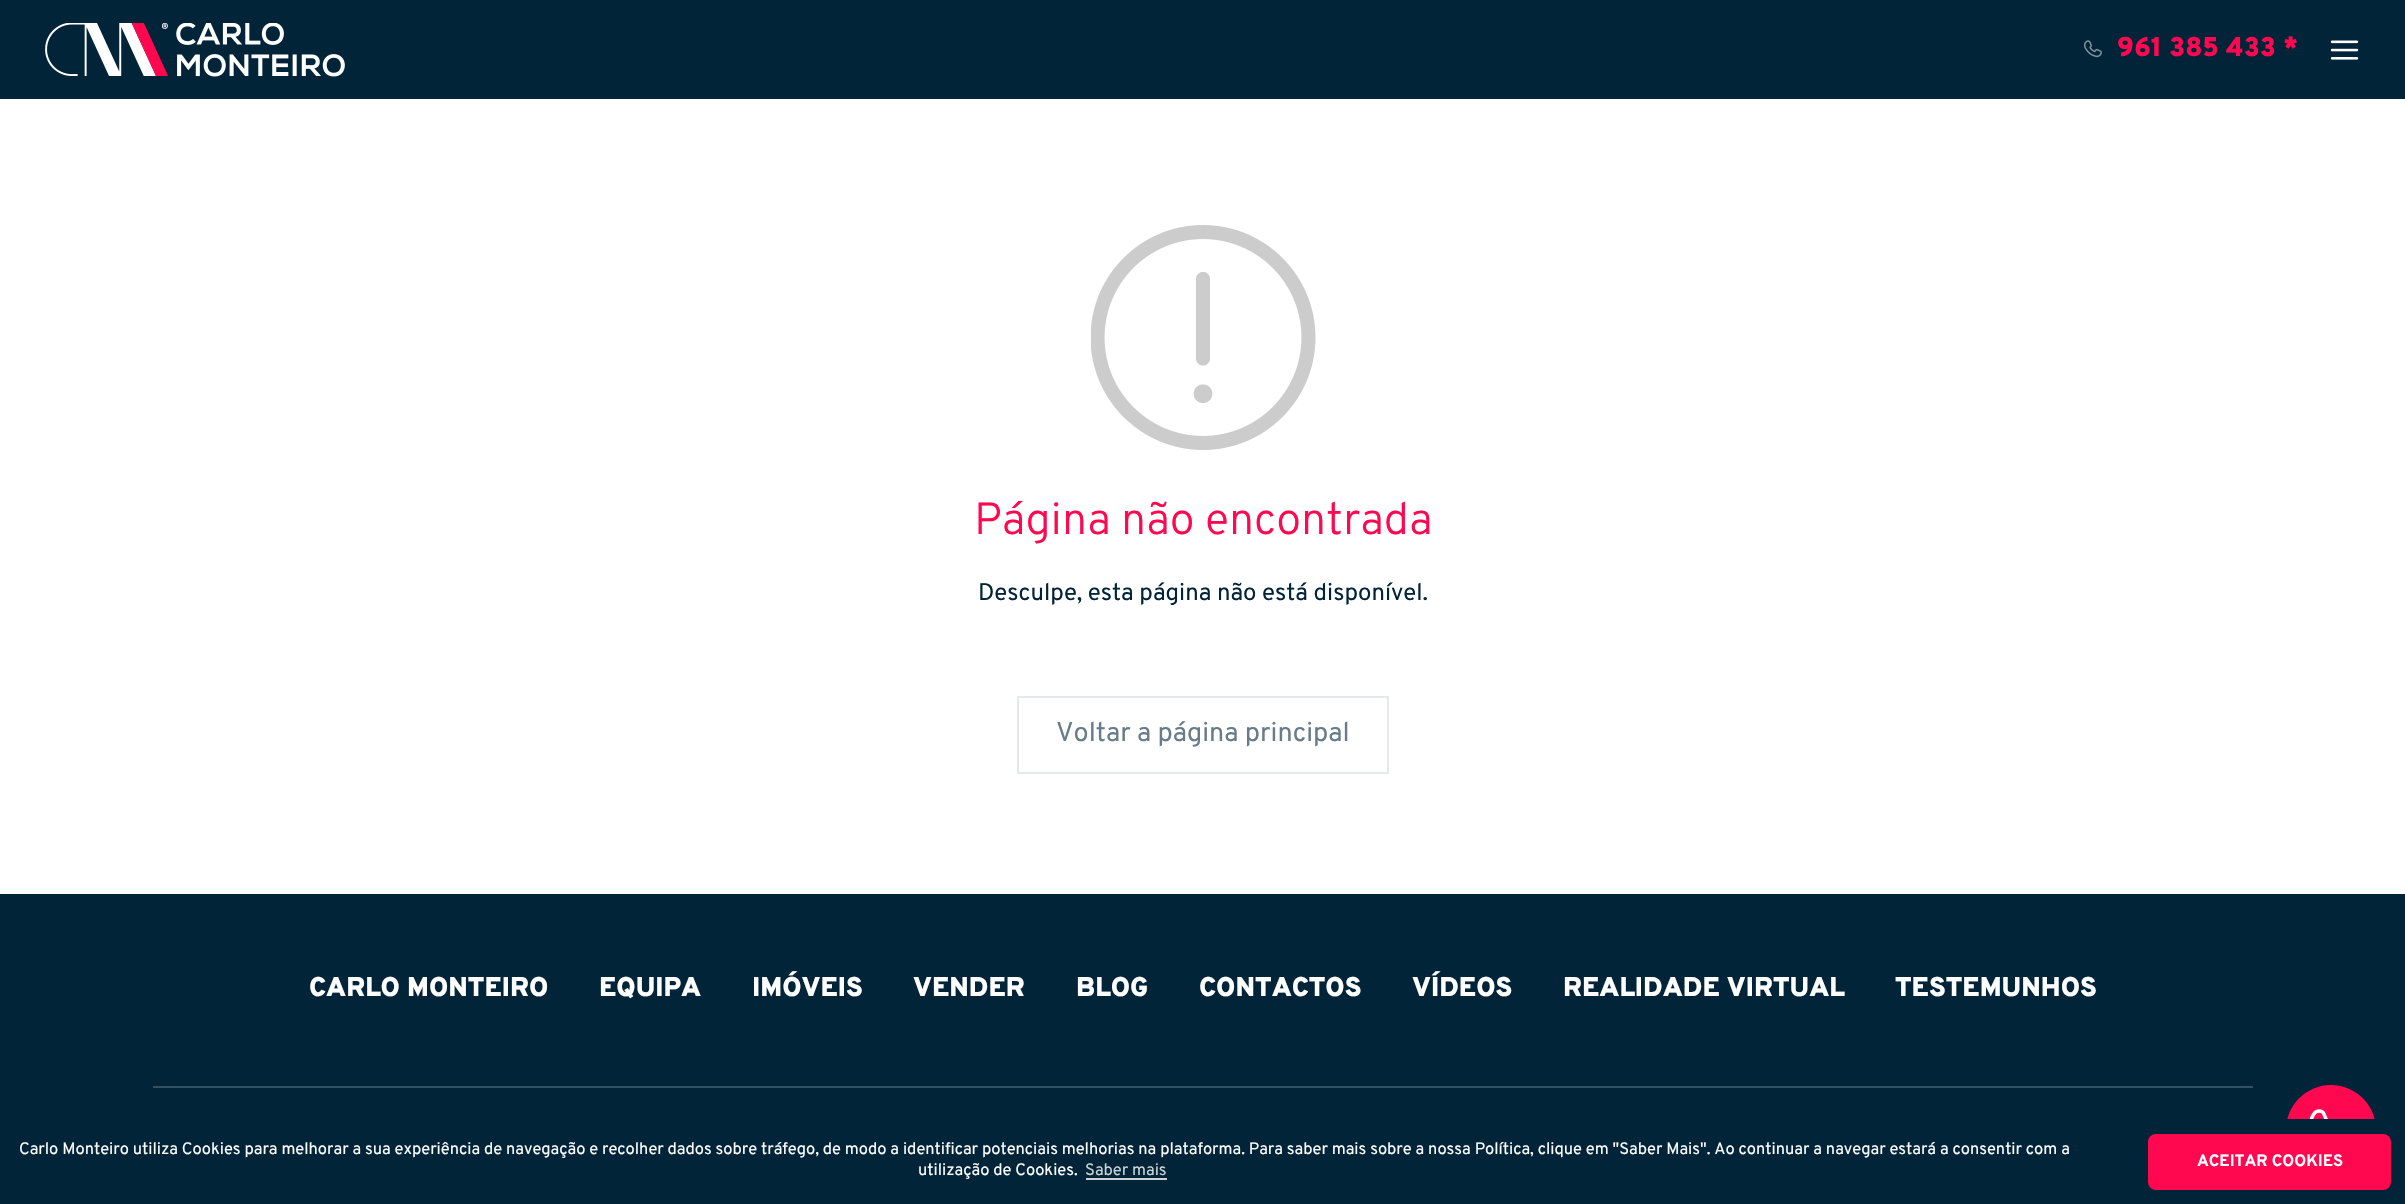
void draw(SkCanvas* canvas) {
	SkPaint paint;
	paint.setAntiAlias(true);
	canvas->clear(0xffffffff);
	paint.setColor(0xff022439);
	canvas->drawRect(SkRect::MakeXYWH(0, 0, 2405, 99), paint);
	canvas->drawImageRect(SkImages::DeferredFromEncodedData(SkData::MakeFromFileName("img1.png")), SkRect::MakeXYWH(45, 23, 300, 54), SkSamplingOptions());
	canvas->drawImageRect(SkImages::DeferredFromEncodedData(SkData::MakeFromFileName("img2.png")), SkRect::MakeXYWH(2084, 40, 18, 18), SkSamplingOptions());
	SkFont f1(fontMgr->matchFamilyStyle("Overpass", SkFontStyle(900, SkFontStyle::kNormal_Width, SkFontStyle::kUpright_Slant)), 27);
	f1.setSubpixel(true);
	paint.setColor(0xffff084f);
	canvas->drawString("961 385 433 *", 2117, 56, f1, paint);
	canvas->drawImageRect(SkImages::DeferredFromEncodedData(SkData::MakeFromFileName("img3.png")), SkRect::MakeXYWH(2330, 40, 29, 20), SkSamplingOptions());
	canvas->drawImageRect(SkImages::DeferredFromEncodedData(SkData::MakeFromFileName("img4.png")), SkRect::MakeXYWH(1091, 225, 225, 225), SkSamplingOptions());
	SkFont f2(fontMgr->matchFamilyStyle("Overpass", SkFontStyle(300, SkFontStyle::kNormal_Width, SkFontStyle::kUpright_Slant)), 45);
	f2.setSubpixel(true);
	canvas->drawString("Página não encontrada", 974, 534, f2, paint);
	SkFont f3(fontMgr->matchFamilyStyle("Overpass", SkFontStyle::Normal()), 24);
	f3.setSubpixel(true);
	paint.setColor(0xff022439);
	canvas->drawString("Desculpe, esta página não está disponível.", 978, 600, f3, paint);
	paint.setStroke(true);
	paint.setStrokeWidth(2);
	paint.setColor(0xffe6e9eb);
	canvas->drawRect(SkRect::MakeXYWH(1018, 697, 370, 76), paint);
	SkFont f4(fontMgr->matchFamilyStyle("Overpass", SkFontStyle::Normal()), 27);
	f4.setSubpixel(true);
	paint.setStroke(false);
	paint.setColor(0xff677c88);
	canvas->drawString("Voltar a página principal", 1056, 741, f4, paint);
	paint.setColor(0xff022439);
	canvas->drawRect(SkRect::MakeXYWH(0, 894, 2405, 225), paint);
	paint.setColor(0xffffffff);
	canvas->drawString("CARLO MONTEIRO", 309, 996, f1, paint);
	canvas->drawString("EQUIPA", 599, 996, f1, paint);
	canvas->drawString("IMÓVEIS", 752, 996, f1, paint);
	canvas->drawString("VENDER", 913, 996, f1, paint);
	canvas->drawString("BLOG", 1076, 996, f1, paint);
	canvas->drawString("CONTACTOS", 1199, 996, f1, paint);
	canvas->drawString("VÍDEOS", 1412, 996, f1, paint);
	canvas->drawString("REALIDADE VIRTUAL", 1563, 996, f1, paint);
	canvas->drawString("TESTEMUNHOS", 1895, 996, f1, paint);
	paint.setColor(0xff355061);
	canvas->drawRect(SkRect::MakeXYWH(153, 1086, 2100, 2), paint);
	paint.setColor(0xffff084f);
	canvas->drawCircle(2331, 1130, 45, paint);
	canvas->drawImageRect(SkImages::DeferredFromEncodedData(SkData::MakeFromFileName("img5.png")), SkRect::MakeXYWH(2309, 1109, 19, 10), SkSamplingOptions());
	paint.setColor(0xff022439);
	canvas->drawRect(SkRect::MakeXYWH(0, 1119, 2405, 85), paint);
	SkFont f5(fontMgr->matchFamilyStyle("Overpass", SkFontStyle::Normal()), 16.5);
	f5.setSubpixel(true);
	paint.setColor(0xffffffff);
	canvas->drawString("Carlo Monteiro utiliza Cookies para melhorar a sua experiência de navegação e recolher dados sobre tráfego, de modo a identificar potenciais melhorias na plataforma. Para saber mais sobre a nossa Política, clique em \"Saber Mais\". Ao continuar a navegar estará a consentir com a", 19, 1154, f5, paint);
	canvas->drawString("utilização de Cookies.", 918, 1175, f5, paint);
	paint.setColor(0xffccd3d7);
	canvas->drawString("Saber mais", 1085, 1175, f5, paint);
	canvas->drawRect(SkRect::MakeXYWH(1086, 1178, 81, 2), paint);
	paint.setColor(0xffff084f);
	canvas->drawRoundRect(SkRect::MakeXYWH(2148, 1134, 243, 56), 8, 8, paint);
	SkFont f6(fontMgr->matchFamilyStyle("Overpass", SkFontStyle::Bold()), 16.5);
	f6.setSubpixel(true);
	paint.setColor(0xffffffff);
	canvas->drawString("ACEITAR COOKIES", 2197, 1166, f6, paint);
}
